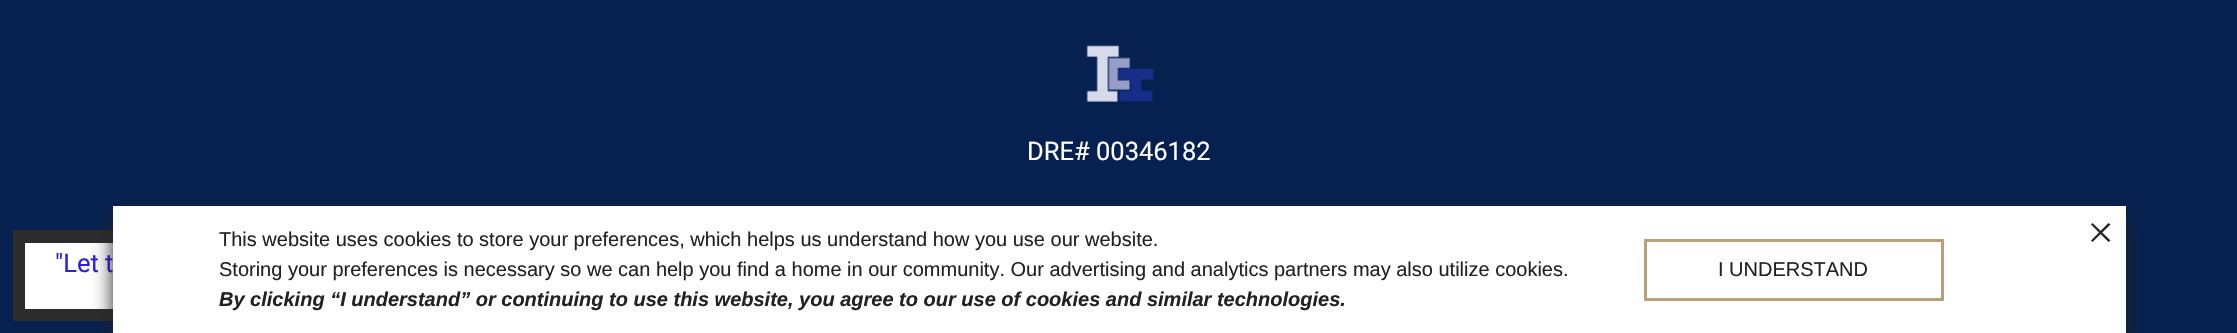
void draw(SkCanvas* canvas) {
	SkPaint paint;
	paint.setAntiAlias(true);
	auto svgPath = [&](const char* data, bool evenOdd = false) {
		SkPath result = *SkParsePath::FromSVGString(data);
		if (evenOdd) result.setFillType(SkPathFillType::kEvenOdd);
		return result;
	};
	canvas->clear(0xff06204f);
	canvas->drawImageRect(SkImages::DeferredFromEncodedData(SkData::MakeFromFileName("img1.png")), SkRect::MakeXYWH(1086, 45, 68, 57), SkSamplingOptions());
	SkFont f1(fontMgr->matchFamilyStyle("Roboto", SkFontStyle::Normal()), 25.5);
	f1.setSubpixel(true);
	paint.setColor(0xffffffff);
	canvas->drawString("DRE# 00346182", 1027, 160, f1, paint);
	canvas->save();
	canvas->clipRect(SkRect::MakeXYWH(13, 230, 475, 91));
	paint.setColor(0xff2c2c2c);
	canvas->drawCircle(250, 276, 375, paint);
	canvas->restore();
	paint.setColor(0xffffffff);
	canvas->drawRect(SkRect::MakeXYWH(25, 243, 88, 66), paint);
	paint.setColor(0xff2e1fe0);
	canvas->drawString("\"Let t", 55, 272, f1, paint);
	paint.setColor(0xff222222);
	paint.setMaskFilter(SkMaskFilter::MakeBlur(kNormal_SkBlurStyle, 9.5));
	canvas->drawRect(SkRect::MakeXYWH(113, 219, 2013, 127), paint);
	paint.setMaskFilter(nullptr);
	paint.setColor(0xffffffff);
	canvas->drawRect(SkRect::MakeXYWH(113, 206, 2013, 127), paint);
	SkFont f2(fontMgr->matchFamilyStyle("Liberation Sans", SkFontStyle::Normal()), 20);
	f2.setSubpixel(true);
	paint.setColor(0xff222222);
	canvas->drawString("This website uses cookies to store your preferences, which helps us understand how you use our website.", 219, 246, f2, paint);
	canvas->drawString("Storing your preferences is necessary so we can help you find a home in our community. Our advertising and analytics partners may also utilize cookies.", 219, 276, f2, paint);
	SkFont f3(fontMgr->matchFamilyStyle("Liberation Sans", SkFontStyle::BoldItalic()), 20);
	f3.setSubpixel(true);
	canvas->drawString("By clicking “I understand” or continuing to use this website, you agree to our use of cookies and similar technologies.", 219, 306, f3, paint);
	paint.setStroke(true);
	paint.setStrokeWidth(3);
	paint.setColor(0xffb99f7a);
	canvas->drawRect(SkRect::MakeXYWH(1645.5, 240.5, 297, 59), paint);
	paint.setStroke(false);
	paint.setColor(0xff222222);
	canvas->drawString("I UNDERSTAND", 1718, 276, f2, paint);
	canvas->drawPath(svgPath("M2092.5 223L2110.5 240.5L2108.5 242L2091 224.5Z"), paint);
	canvas->drawPath(svgPath("M2091 240.5L2108.5 223L2110.5 224.5L2092.5 242Z"), paint);
}
